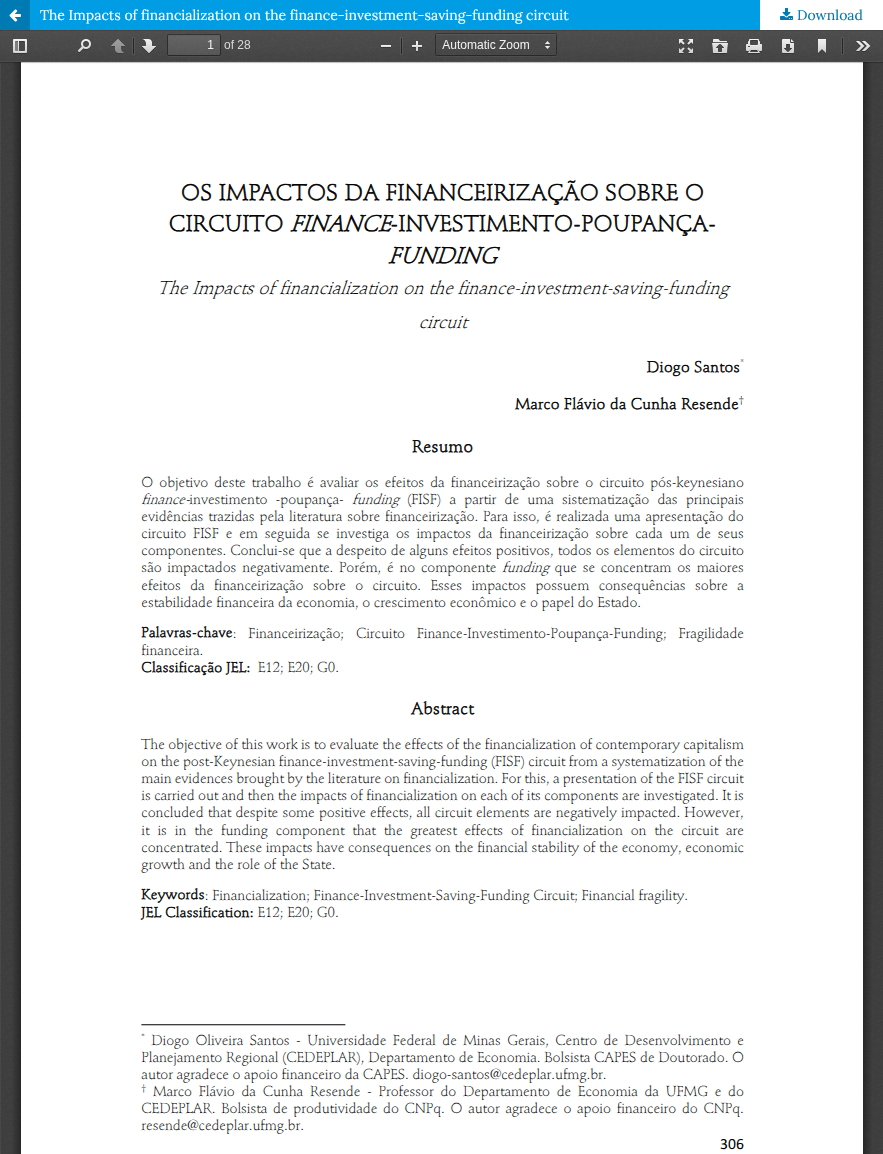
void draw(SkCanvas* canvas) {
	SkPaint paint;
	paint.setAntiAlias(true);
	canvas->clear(0xffffffff);
	paint.setColor(0xff009de5);
	canvas->drawRect(SkRect::MakeXYWH(30, 0, 730, 30), paint);
	paint.setColor(0xff007ab2);
	canvas->drawRect(SkRect::MakeXYWH(0, 0, 30, 30), paint);
	canvas->drawImageRect(SkImages::DeferredFromEncodedData(SkData::MakeFromFileName("img1.png")), SkRect::MakeXYWH(9, 9, 12, 13), SkSamplingOptions());
	SkFont f1(fontMgr->matchFamilyStyle("Lora", SkFontStyle::Normal()), 14);
	f1.setSubpixel(true);
	paint.setColor(0xffffffff);
	canvas->drawString("The Impacts of financialization on the finance-investment-saving-funding circuit", 40, 20, f1, paint);
	canvas->drawImageRect(SkImages::DeferredFromEncodedData(SkData::MakeFromFileName("img2.png")), SkRect::MakeXYWH(780, 8, 13, 12), SkSamplingOptions());
	paint.setColor(0xff007ab2);
	canvas->drawString("Download", 797, 20, f1, paint);
	canvas->drawImageRect(SkImages::DeferredFromEncodedData(SkData::MakeFromFileName("img3.png")), SkRect::MakeXYWH(0, 30, 883, 1124), SkSamplingOptions());
}
